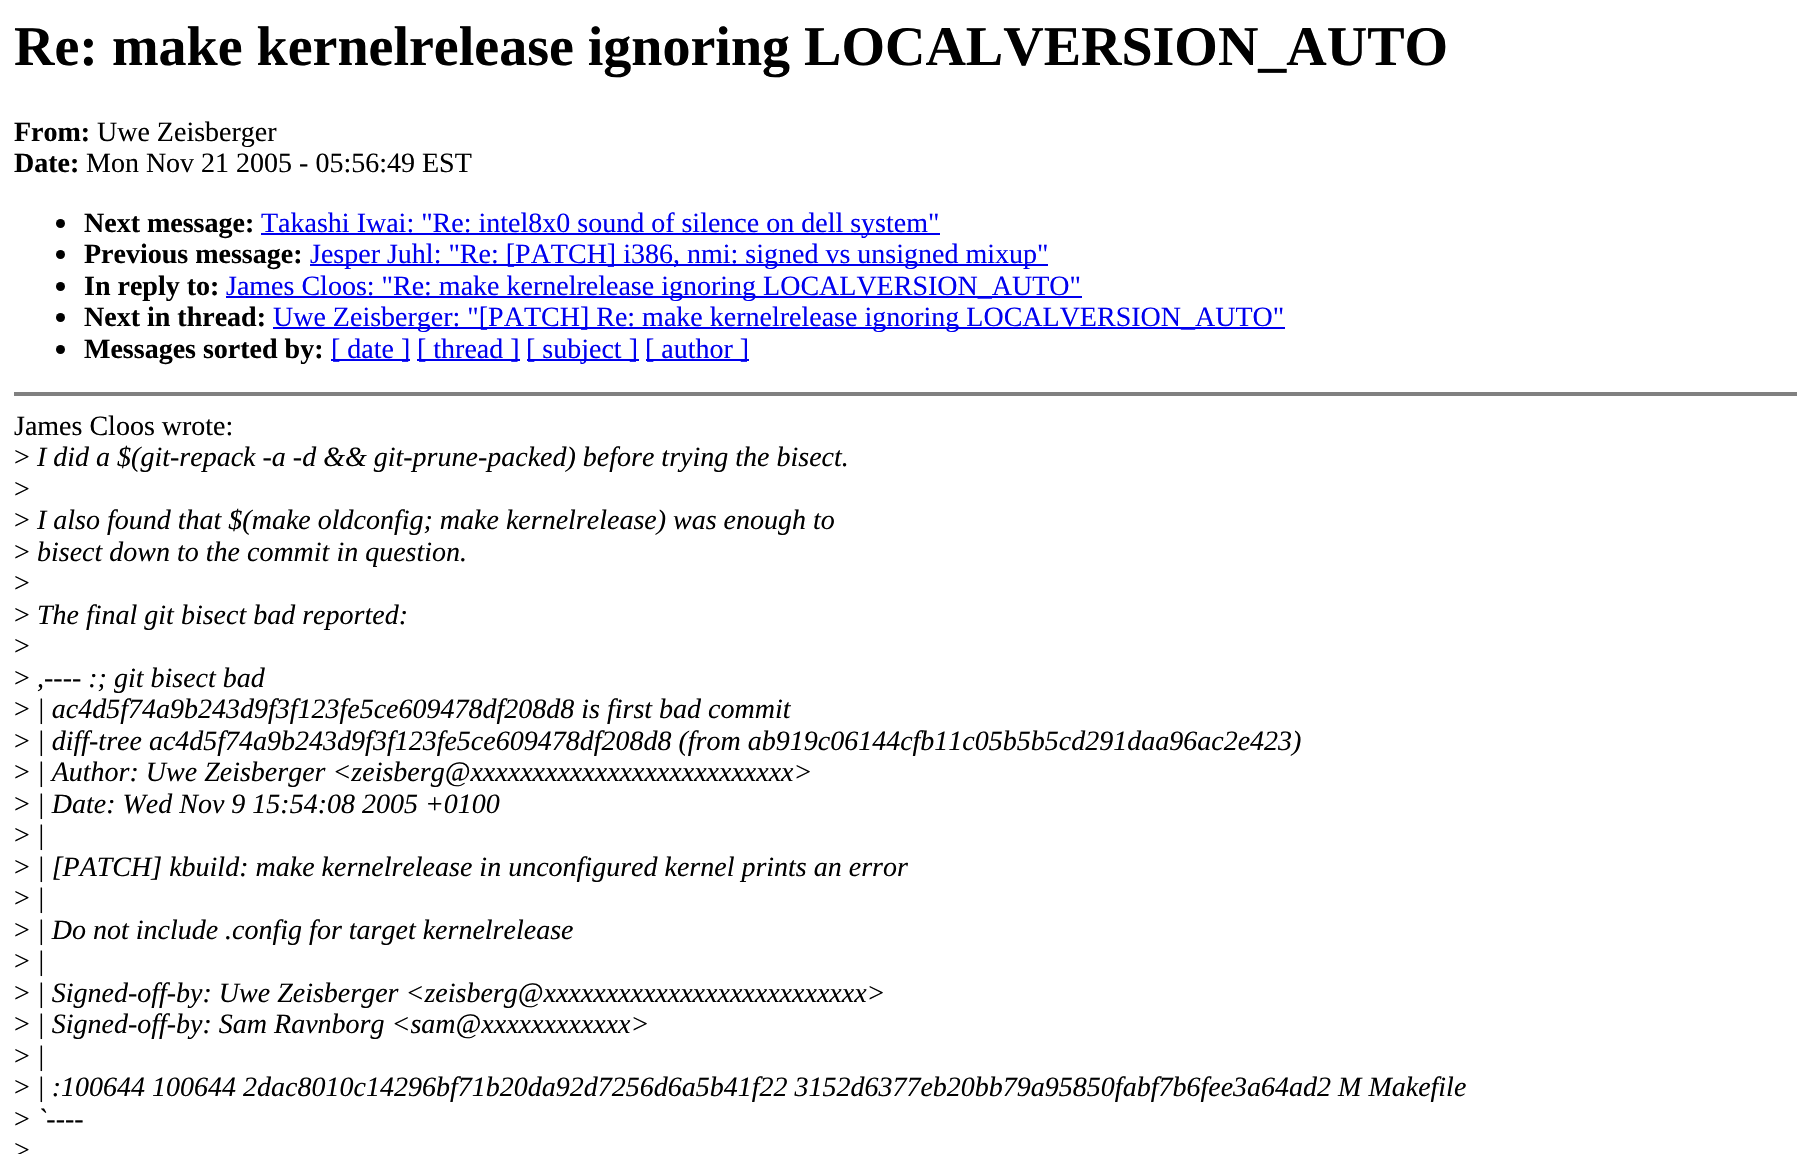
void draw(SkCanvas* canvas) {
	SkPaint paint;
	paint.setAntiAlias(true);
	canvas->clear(0xffffffff);
	SkFont f1(fontMgr->matchFamilyStyle("Liberation Serif", SkFontStyle::Bold()), 56);
	f1.setSubpixel(true);
	paint.setColor(0xff000000);
	canvas->drawString("Re: make kernelrelease ignoring LOCALVERSION_AUTO", 14, 65, f1, paint);
	SkFont f2(fontMgr->matchFamilyStyle("Liberation Serif", SkFontStyle::Bold()), 28);
	f2.setSubpixel(true);
	canvas->drawString("From:", 14, 141, f2, paint);
	SkFont f3(fontMgr->matchFamilyStyle("Liberation Serif", SkFontStyle::Normal()), 28);
	f3.setSubpixel(true);
	canvas->drawString("Uwe Zeisberger", 97, 141, f3, paint);
	canvas->drawString("Date:", 14, 172, f2, paint);
	canvas->drawString("Mon Nov 21 2005 - 05:56:49 EST", 86, 172, f3, paint);
	canvas->drawCircle(60.5, 223.5, 4.5, paint);
	canvas->drawString("Next message:", 84, 232, f2, paint);
	paint.setColor(0xff0000ee);
	canvas->drawRect(SkRect::MakeXYWH(261, 233, 679, 2), paint);
	canvas->drawString("Takashi Iwai: \"Re: intel8x0 sound of silence on dell system\"", 261, 232, f3, paint);
	paint.setColor(0xff000000);
	canvas->drawCircle(60.5, 254.5, 4.5, paint);
	canvas->drawString("Previous message:", 84, 263, f2, paint);
	paint.setColor(0xff0000ee);
	canvas->drawRect(SkRect::MakeXYWH(310, 264, 738, 2), paint);
	canvas->drawString("Jesper Juhl: \"Re: [PATCH] i386, nmi: signed vs unsigned mixup\"", 310, 263, f3, paint);
	paint.setColor(0xff000000);
	canvas->drawCircle(60.5, 286.5, 4.5, paint);
	canvas->drawString("In reply to:", 84, 295, f2, paint);
	paint.setColor(0xff0000ee);
	canvas->drawRect(SkRect::MakeXYWH(226, 296, 856, 2), paint);
	canvas->drawString("James Cloos: \"Re: make kernelrelease ignoring LOCALVERSION_AUTO\"", 226, 295, f3, paint);
	paint.setColor(0xff000000);
	canvas->drawCircle(60.5, 317.5, 4.5, paint);
	canvas->drawString("Next in thread:", 84, 326, f2, paint);
	paint.setColor(0xff0000ee);
	canvas->drawRect(SkRect::MakeXYWH(273, 327, 1012, 2), paint);
	canvas->drawString("Uwe Zeisberger: \"[PATCH] Re: make kernelrelease ignoring LOCALVERSION_AUTO\"", 273, 326, f3, paint);
	paint.setColor(0xff000000);
	canvas->drawCircle(60.5, 349.5, 4.5, paint);
	canvas->drawString("Messages sorted by:", 84, 358, f2, paint);
	paint.setColor(0xff0000ee);
	canvas->drawRect(SkRect::MakeXYWH(331, 359, 79, 2), paint);
	canvas->drawString("[ date ]", 331, 358, f3, paint);
	canvas->drawRect(SkRect::MakeXYWH(417, 359, 103, 2), paint);
	canvas->drawString("[ thread ]", 417, 358, f3, paint);
	canvas->drawRect(SkRect::MakeXYWH(527, 359, 112, 2), paint);
	canvas->drawString("[ subject ]", 526, 358, f3, paint);
	canvas->drawRect(SkRect::MakeXYWH(646, 359, 103, 2), paint);
	canvas->drawString("[ author ]", 645, 358, f3, paint);
	paint.setColor(0xff808080);
	canvas->drawRect(SkRect::MakeXYWH(14, 392, 1783, 4), paint);
	paint.setColor(0xff000000);
	canvas->drawString("James Cloos wrote:", 14, 435, f3, paint);
	canvas->drawString(">", 14, 466, f3, paint);
	SkFont f4(fontMgr->matchFamilyStyle("Liberation Serif", SkFontStyle::Italic()), 28);
	f4.setSubpixel(true);
	canvas->drawString("I did a $(git-repack -a -d && git-prune-packed) before trying the bisect.", 37, 466, f4, paint);
	canvas->drawString(">", 14, 498, f3, paint);
	canvas->drawString(">", 14, 529, f3, paint);
	canvas->drawString("I also found that $(make oldconfig; make kernelrelease) was enough to", 37, 529, f4, paint);
	canvas->drawString(">", 14, 561, f3, paint);
	canvas->drawString("bisect down to the commit in question.", 37, 561, f4, paint);
	canvas->drawString(">", 14, 592, f3, paint);
	canvas->drawString(">", 14, 624, f3, paint);
	canvas->drawString("The final git bisect bad reported:", 37, 624, f4, paint);
	canvas->drawString(">", 14, 655, f3, paint);
	canvas->drawString(">", 14, 687, f3, paint);
	canvas->drawString(",---- :; git bisect bad", 37, 687, f4, paint);
	canvas->drawString(">", 14, 718, f3, paint);
	canvas->drawString("| ac4d5f74a9b243d9f3f123fe5ce609478df208d8 is first bad commit", 37, 718, f4, paint);
	canvas->drawString(">", 14, 750, f3, paint);
	canvas->drawString("| diff-tree ac4d5f74a9b243d9f3f123fe5ce609478df208d8 (from ab919c06144cfb11c05b5b5cd291daa96ac2e423)", 37, 750, f4, paint);
	canvas->drawString(">", 14, 781, f3, paint);
	canvas->drawString("| Author: Uwe Zeisberger <zeisberg@xxxxxxxxxxxxxxxxxxxxxxxxxx>", 37, 781, f4, paint);
	canvas->drawString(">", 14, 813, f3, paint);
	canvas->drawString("| Date: Wed Nov 9 15:54:08 2005 +0100", 37, 813, f4, paint);
	canvas->drawString(">", 14, 844, f3, paint);
	canvas->drawString("|", 37, 844, f4, paint);
	canvas->drawString(">", 14, 876, f3, paint);
	canvas->drawString("| [PATCH] kbuild: make kernelrelease in unconfigured kernel prints an error", 37, 876, f4, paint);
	canvas->drawString(">", 14, 907, f3, paint);
	canvas->drawString("|", 37, 907, f4, paint);
	canvas->drawString(">", 14, 939, f3, paint);
	canvas->drawString("| Do not include .config for target kernelrelease", 37, 939, f4, paint);
	canvas->drawString(">", 14, 970, f3, paint);
	canvas->drawString("|", 37, 970, f4, paint);
	canvas->drawString(">", 14, 1002, f3, paint);
	canvas->drawString("| Signed-off-by: Uwe Zeisberger <zeisberg@xxxxxxxxxxxxxxxxxxxxxxxxxx>", 37, 1002, f4, paint);
	canvas->drawString(">", 14, 1033, f3, paint);
	canvas->drawString("| Signed-off-by: Sam Ravnborg <sam@xxxxxxxxxxxx>", 37, 1033, f4, paint);
	canvas->drawString(">", 14, 1065, f3, paint);
	canvas->drawString("|", 37, 1065, f4, paint);
	canvas->drawString(">", 14, 1096, f3, paint);
	canvas->drawString("| :100644 100644 2dac8010c14296bf71b20da92d7256d6a5b41f22 3152d6377eb20bb79a95850fabf7b6fee3a64ad2 M Makefile", 37, 1096, f4, paint);
	canvas->drawString(">", 14, 1128, f3, paint);
	canvas->drawString("`----", 37, 1128, f4, paint);
	canvas->drawString(">", 14, 1159, f3, paint);
}
